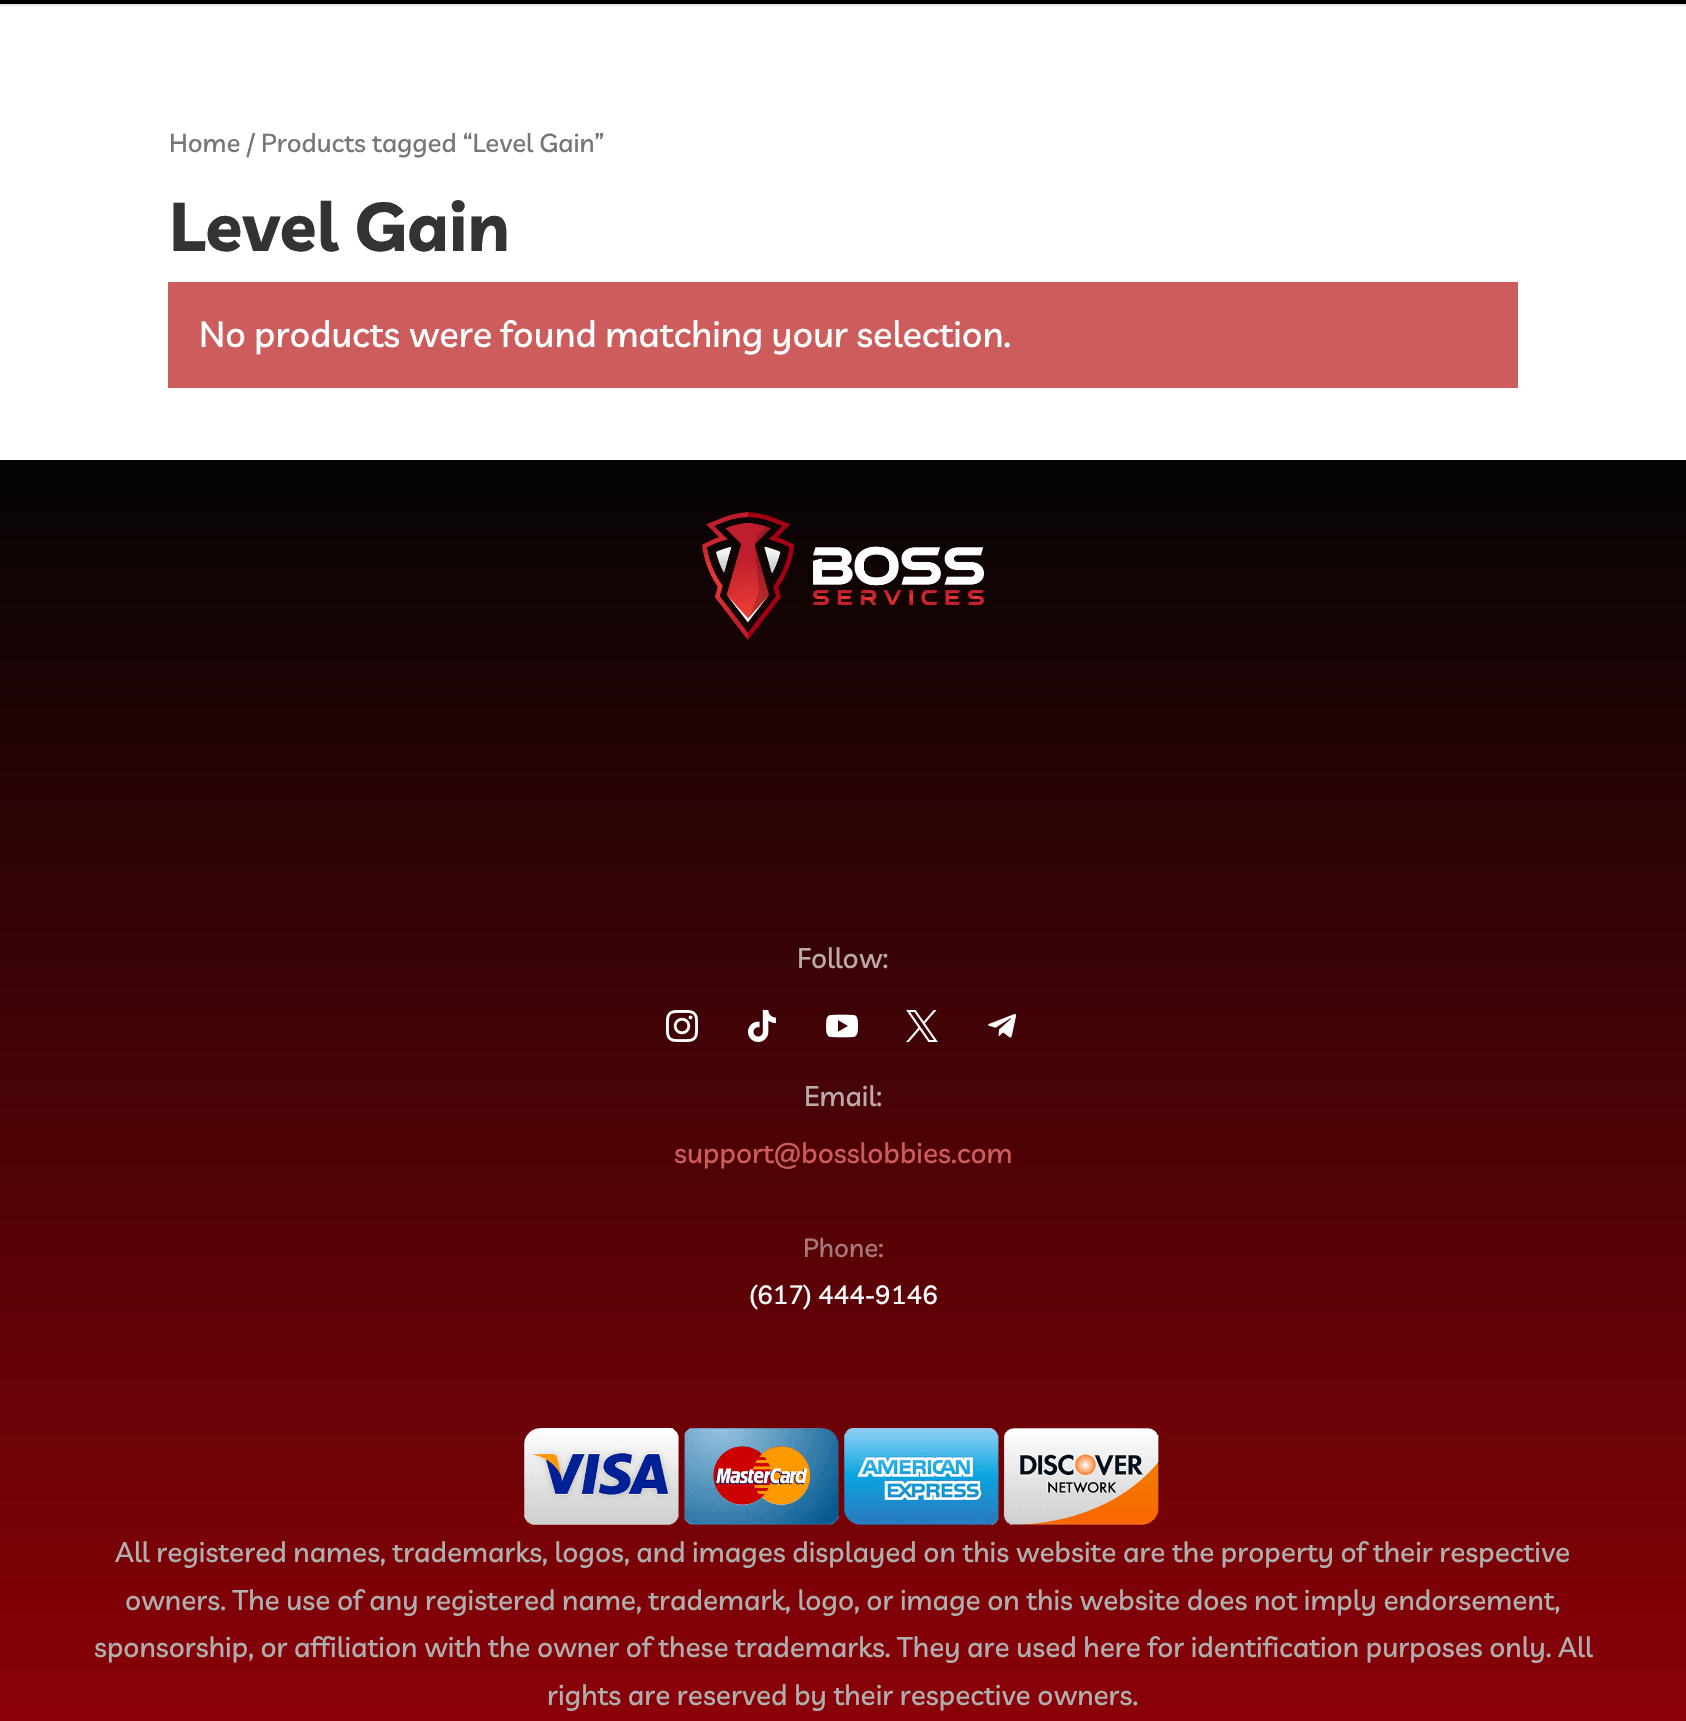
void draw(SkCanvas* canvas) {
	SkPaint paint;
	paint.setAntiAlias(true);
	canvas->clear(0xffffffff);
	paint.setColor(0xffe6e6e6);
	canvas->drawRect(SkRect::MakeXYWH(0, 4, 1686, 2), paint);
	paint.setColor(0xff000000);
	canvas->drawRect(SkRect::MakeXYWH(0, 0, 1686, 4), paint);
	SkFont f1(fontMgr->matchFamilyStyle("Livvic", SkFontStyle(500, SkFontStyle::kNormal_Width, SkFontStyle::kUpright_Slant)), 25.75);
	f1.setSubpixel(true);
	paint.setColor(0xff767676);
	canvas->drawString("Home / Products tagged “Level Gain”", 169, 152, f1, paint);
	SkFont f2(fontMgr->matchFamilyStyle("Livvic", SkFontStyle::Bold()), 68);
	f2.setSubpixel(true);
	paint.setColor(0xff333333);
	canvas->drawString("Level Gain", 169, 251, f2, paint);
	paint.setColor(0xffcd5c5c);
	canvas->drawRect(SkRect::MakeXYWH(168, 282, 1350, 106), paint);
	SkFont f3(fontMgr->matchFamilyStyle("Livvic", SkFontStyle(500, SkFontStyle::kNormal_Width, SkFontStyle::kUpright_Slant)), 36);
	f3.setSubpixel(true);
	paint.setColor(0xffffffff);
	canvas->drawString("No products were found matching your selection.", 199, 347, f3, paint);
	{
		const SkColor colors[] = {0xffbf0009, 0xff040404, 0xff940108};
		const float stops[] = {0, 0, 1};
		const SkPoint ends[] = {{843, 460}, {843, 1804}};
		paint.setShader(SkGradientShader::MakeLinear(ends, colors, stops, 3, SkTileMode::kClamp));
		paint.setAlpha(255);
	}
	canvas->drawRect(SkRect::MakeXYWH(0, 460, 1686, 1261), paint);
	canvas->drawImageRect(SkImages::DeferredFromEncodedData(SkData::MakeFromFileName("img1.png")), SkRect::MakeXYWH(702, 512, 282, 128), SkSamplingOptions());
	SkFont f4(fontMgr->matchFamilyStyle("Livvic", SkFontStyle(500, SkFontStyle::kNormal_Width, SkFontStyle::kUpright_Slant)), 28);
	f4.setSubpixel(true);
	paint.setShader(nullptr);
	paint.setColor(0xffbca9aa);
	canvas->drawString("Follow:", 797, 968, f4, paint);
	canvas->drawImageRect(SkImages::DeferredFromEncodedData(SkData::MakeFromFileName("img2.png")), SkRect::MakeXYWH(666, 1010, 32, 32), SkSamplingOptions());
	canvas->drawImageRect(SkImages::DeferredFromEncodedData(SkData::MakeFromFileName("img3.png")), SkRect::MakeXYWH(748, 1010, 28, 32), SkSamplingOptions());
	canvas->drawImageRect(SkImages::DeferredFromEncodedData(SkData::MakeFromFileName("img4.png")), SkRect::MakeXYWH(826, 1014, 32, 24), SkSamplingOptions());
	canvas->drawImageRect(SkImages::DeferredFromEncodedData(SkData::MakeFromFileName("img5.png")), SkRect::MakeXYWH(906, 1010, 32, 32), SkSamplingOptions());
	canvas->drawImageRect(SkImages::DeferredFromEncodedData(SkData::MakeFromFileName("img6.png")), SkRect::MakeXYWH(988, 1014, 29, 24), SkSamplingOptions());
	canvas->drawString("Email:", 804, 1106, f4, paint);
	paint.setColor(0xffcd5c5c);
	canvas->drawString("support@bosslobbies.com", 674, 1163, f4, paint);
	SkFont f5(fontMgr->matchFamilyStyle("Livvic", SkFontStyle(500, SkFontStyle::kNormal_Width, SkFontStyle::kUpright_Slant)), 26);
	f5.setSubpixel(true);
	paint.setColor(0xffa7797b);
	canvas->drawString("Phone:", 803, 1257, f5, paint);
	paint.setColor(0xffffffff);
	canvas->drawString("(617) 444-9146", 749, 1304, f5, paint);
	canvas->drawImageRect(SkImages::DeferredFromEncodedData(SkData::MakeFromFileName("img7.png")), SkRect::MakeXYWH(524, 1428, 635, 97), SkSamplingOptions());
	paint.setColor(0xffafafaf);
	canvas->drawString("All registered names, trademarks, logos, and images displayed on this website are the property of their respective", 115, 1562, f4, paint);
	canvas->drawString("owners. The use of any registered name, trademark, logo, or image on this website does not imply endorsement,", 125, 1610, f4, paint);
	canvas->drawString("sponsorship, or affiliation with the owner of these trademarks. They are used here for identification purposes only. All", 94, 1657, f4, paint);
	canvas->drawString("rights are reserved by their respective owners.", 547, 1705, f4, paint);
}
